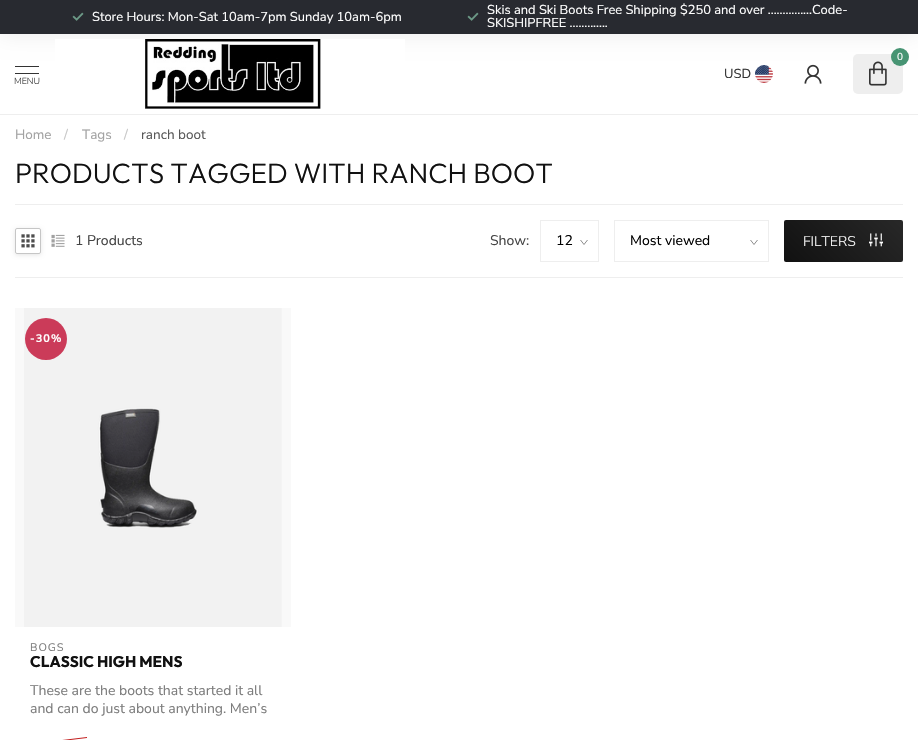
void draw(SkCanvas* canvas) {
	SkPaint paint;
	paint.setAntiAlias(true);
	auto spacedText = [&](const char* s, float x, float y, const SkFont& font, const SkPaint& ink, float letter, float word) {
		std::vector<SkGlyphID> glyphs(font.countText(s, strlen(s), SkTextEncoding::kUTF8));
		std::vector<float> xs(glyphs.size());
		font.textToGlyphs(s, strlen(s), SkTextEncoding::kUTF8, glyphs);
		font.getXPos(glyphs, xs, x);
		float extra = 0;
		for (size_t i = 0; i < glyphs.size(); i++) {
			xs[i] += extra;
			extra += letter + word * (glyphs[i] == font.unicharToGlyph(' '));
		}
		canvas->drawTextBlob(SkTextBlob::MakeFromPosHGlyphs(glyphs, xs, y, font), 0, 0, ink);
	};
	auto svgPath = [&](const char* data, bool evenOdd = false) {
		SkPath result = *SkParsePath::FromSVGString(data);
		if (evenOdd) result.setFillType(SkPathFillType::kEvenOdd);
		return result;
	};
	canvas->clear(0xffffffff);
	paint.setColor(0x14000000);
	paint.setMaskFilter(SkMaskFilter::MakeBlur(kNormal_SkBlurStyle, 11));
	canvas->drawRect(SkRect::MakeXYWH(0, 0, 918, 34), paint);
	paint.setMaskFilter(nullptr);
	paint.setColor(0xff282a30);
	canvas->drawRect(SkRect::MakeXYWH(0, 0, 918, 34), paint);
	canvas->drawImageRect(SkImages::DeferredFromEncodedData(SkData::MakeFromFileName("img1.png")), SkRect::MakeXYWH(72, 12, 12, 9), SkSamplingOptions());
	SkFont f1(fontMgr->matchFamilyStyle("Nunito Sans", SkFontStyle::Normal()), 12.9);
	f1.setSubpixel(true);
	paint.setColor(0xffffffff);
	canvas->drawString("Store Hours: Mon-Sat 10am-7pm Sunday 10am-6pm", 92, 21, f1, paint);
	canvas->drawImageRect(SkImages::DeferredFromEncodedData(SkData::MakeFromFileName("img1.png")), SkRect::MakeXYWH(467, 12, 12, 9), SkSamplingOptions());
	canvas->drawString("Skis and Ski Boots Free Shipping $250 and over ...............Code-", 487, 14, f1, paint);
	canvas->drawString("SKISHIPFREE .............", 487, 27, f1, paint);
	paint.setColor(0xffeeeeee);
	canvas->drawRoundRect(SkRect::MakeXYWH(853, 54, 50, 40), 5, 5, paint);
	paint.setColor(0xff479473);
	canvas->drawCircle(900, 57, 9, paint);
	SkFont f2(fontMgr->matchFamilyStyle("Nunito Sans", SkFontStyle::Normal()), 10);
	f2.setSubpixel(true);
	paint.setColor(0xffffffff);
	canvas->drawString("0", 897, 60, f2, paint);
	canvas->drawImageRect(SkImages::DeferredFromEncodedData(SkData::MakeFromFileName("img2.png")), SkRect::MakeXYWH(869, 61, 18, 25), SkSamplingOptions());
	SkFont f3(fontMgr->matchFamilyStyle("Nunito Sans", SkFontStyle::Normal()), 13);
	f3.setSubpixel(true);
	paint.setColor(0xff333333);
	canvas->drawString("USD", 724, 78, f3, paint);
	canvas->drawImageRect(SkImages::DeferredFromEncodedData(SkData::MakeFromFileName("img3.png")), SkRect::MakeXYWH(755, 65, 18, 18), SkSamplingOptions());
	canvas->drawImageRect(SkImages::DeferredFromEncodedData(SkData::MakeFromFileName("img4.png")), SkRect::MakeXYWH(804, 64, 18, 20), SkSamplingOptions());
	canvas->drawRect(SkRect::MakeXYWH(15, 66, 24, 1), paint);
	canvas->drawRect(SkRect::MakeXYWH(15, 73, 24, 1), paint);
	SkFont f4(fontMgr->matchFamilyStyle("Nunito Sans", SkFontStyle(300, SkFontStyle::kNormal_Width, SkFontStyle::kUpright_Slant)), 9);
	f4.setSubpixel(true);
	canvas->drawString("MENU", 14, 84, f4, paint);
	canvas->drawImageRect(SkImages::DeferredFromEncodedData(SkData::MakeFromFileName("img5.png")), SkRect::MakeXYWH(55, 39, 350, 70), SkSamplingOptions());
	paint.setColor(0xffeeeeee);
	canvas->drawRect(SkRect::MakeXYWH(0, 114, 918, 1), paint);
	SkFont f5(fontMgr->matchFamilyStyle("Nunito Sans", SkFontStyle::Normal()), 13.5);
	f5.setSubpixel(true);
	paint.setColor(0xffa2a2a2);
	canvas->drawString("Home", 15, 139, f5, paint);
	paint.setColor(0xffc7c7c7);
	canvas->drawString("/", 64, 139, f5, paint);
	paint.setColor(0xffa2a2a2);
	canvas->drawString("Tags", 82, 139, f5, paint);
	paint.setColor(0xffc7c7c7);
	canvas->drawString("/", 124, 139, f5, paint);
	paint.setColor(0xff575757);
	canvas->drawString("ranch boot", 141, 139, f5, paint);
	SkFont f6(fontMgr->matchFamilyStyle("Outfit", SkFontStyle(300, SkFontStyle::kNormal_Width, SkFontStyle::kUpright_Slant)), 28);
	f6.setSubpixel(true);
	paint.setColor(0xff111111);
	canvas->drawString("PRODUCTS TAGGED WITH RANCH BOOT", 15, 183, f6, paint);
	paint.setColor(0xffeeeeee);
	canvas->drawRect(SkRect::MakeXYWH(15, 204, 888, 1), paint);
	canvas->drawRect(SkRect::MakeXYWH(15, 277, 888, 1), paint);
	canvas->save();
	canvas->clipPath(svgPath("M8 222H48V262H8ZM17 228H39C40 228 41 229 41 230V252C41 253 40 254 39 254H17C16 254 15 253 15 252V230C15 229 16 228 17 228Z", true), true);
	paint.setColor(0x1a000000);
	paint.setMaskFilter(SkMaskFilter::MakeBlur(kNormal_SkBlurStyle, 2));
	canvas->drawRoundRect(SkRect::MakeXYWH(15, 229, 26, 26), 2, 2, paint);
	paint.setMaskFilter(nullptr);
	canvas->restore();
	paint.setStroke(true);
	paint.setStrokeWidth(1);
	paint.setColor(0xffc6c6c6);
	canvas->drawRoundRect(SkRect::MakeXYWH(15.5, 228.5, 25, 25), 1.5, 1.5, paint);
	canvas->drawImageRect(SkImages::DeferredFromEncodedData(SkData::MakeFromFileName("img6.png")), SkRect::MakeXYWH(21, 234, 14, 14), SkSamplingOptions());
	canvas->drawImageRect(SkImages::DeferredFromEncodedData(SkData::MakeFromFileName("img7.png")), SkRect::MakeXYWH(51, 234, 14, 13), SkSamplingOptions());
	SkFont f7(fontMgr->matchFamilyStyle("Nunito Sans", SkFontStyle::Normal()), 14);
	f7.setSubpixel(true);
	paint.setStroke(false);
	paint.setColor(0xff444444);
	canvas->drawString("1 Products", 75, 245, f7, paint);
	canvas->drawString("Show:", 490, 245, f7, paint);
	paint.setStroke(true);
	paint.setStrokeWidth(0.7);
	paint.setColor(0xff595959);
	canvas->drawPath(svgPath("M587.5 240L584 244.5L580.5 240"), paint);
	paint.setStrokeWidth(1);
	paint.setColor(0xffeeeeee);
	canvas->drawRect(SkRect::MakeXYWH(540.5, 220.5, 58, 41), paint);
	paint.setStroke(false);
	paint.setColor(0xff000000);
	canvas->drawString("12", 556, 245, f7, paint);
	paint.setStroke(true);
	paint.setStrokeWidth(0.7);
	paint.setColor(0xff595959);
	canvas->drawPath(svgPath("M757.5 240L754 244.5L750.5 240"), paint);
	paint.setStrokeWidth(1);
	paint.setColor(0xffeeeeee);
	canvas->drawRect(SkRect::MakeXYWH(614.5, 220.5, 154, 41), paint);
	paint.setStroke(false);
	paint.setColor(0xff000000);
	canvas->drawString("Most viewed", 630, 245, f7, paint);
	{
		const SkColor colors[] = {0xff111111, 0xff282828};
		const float stops[] = {0, 1};
		const SkPoint ends[] = {{803, 281}, {884, 201}};
		paint.setShader(SkGradientShader::MakeLinear(ends, colors, stops, 2, SkTileMode::kClamp));
		paint.setAlpha(255);
	}
	canvas->drawRoundRect(SkRect::MakeXYWH(784, 220, 119, 42), 2, 2, paint);
	SkFont f8(fontMgr->matchFamilyStyle("Nunito Sans", SkFontStyle(300, SkFontStyle::kNormal_Width, SkFontStyle::kUpright_Slant)), 14);
	f8.setSubpixel(true);
	paint.setShader(nullptr);
	paint.setColor(0xffffffff);
	canvas->drawString("FILTERS", 803, 246, f8, paint);
	canvas->drawImageRect(SkImages::DeferredFromEncodedData(SkData::MakeFromFileName("img8.png")), SkRect::MakeXYWH(869, 233, 14, 14), SkSamplingOptions());
	canvas->drawImageRect(SkImages::DeferredFromEncodedData(SkData::MakeFromFileName("img9.png")), SkRect::MakeXYWH(24, 308, 258, 319), SkSamplingOptions());
	paint.setColor(0x0f9b9b9b);
	canvas->drawRect(SkRect::MakeXYWH(15, 308, 276, 319), paint);
	paint.setColor(0xffcb3b59);
	canvas->drawCircle(46, 339, 21, paint);
	SkFont f9(fontMgr->matchFamilyStyle("Nunito Sans", SkFontStyle::Bold()), 11);
	f9.setSubpixel(true);
	paint.setColor(0xffffffff);
	spacedText("-30%", 30, 342, f9, paint, 1, 0);
	SkFont f10(fontMgr->matchFamilyStyle("Nunito Sans", SkFontStyle::Normal()), 11);
	f10.setSubpixel(true);
	paint.setColor(0xff7c7c7c);
	spacedText("BOGS", 30, 651, f10, paint, 1, 0);
	SkFont f11(fontMgr->matchFamilyStyle("Outfit", SkFontStyle::Bold()), 15.5);
	f11.setSubpixel(true);
	paint.setColor(0xff111111);
	canvas->drawString("CLASSIC HIGH MENS", 30, 667, f11, paint);
	paint.setColor(0xff7c7c7c);
	canvas->drawString("These are the boots that started it all", 30, 695, f7, paint);
	canvas->drawString("and can do just about anything. Men’s", 30, 713, f7, paint);
	paint.setColor(0xffc31e1e);
	canvas->drawPath(svgPath("M29 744L87 737V738L29 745Z"), paint);
}
